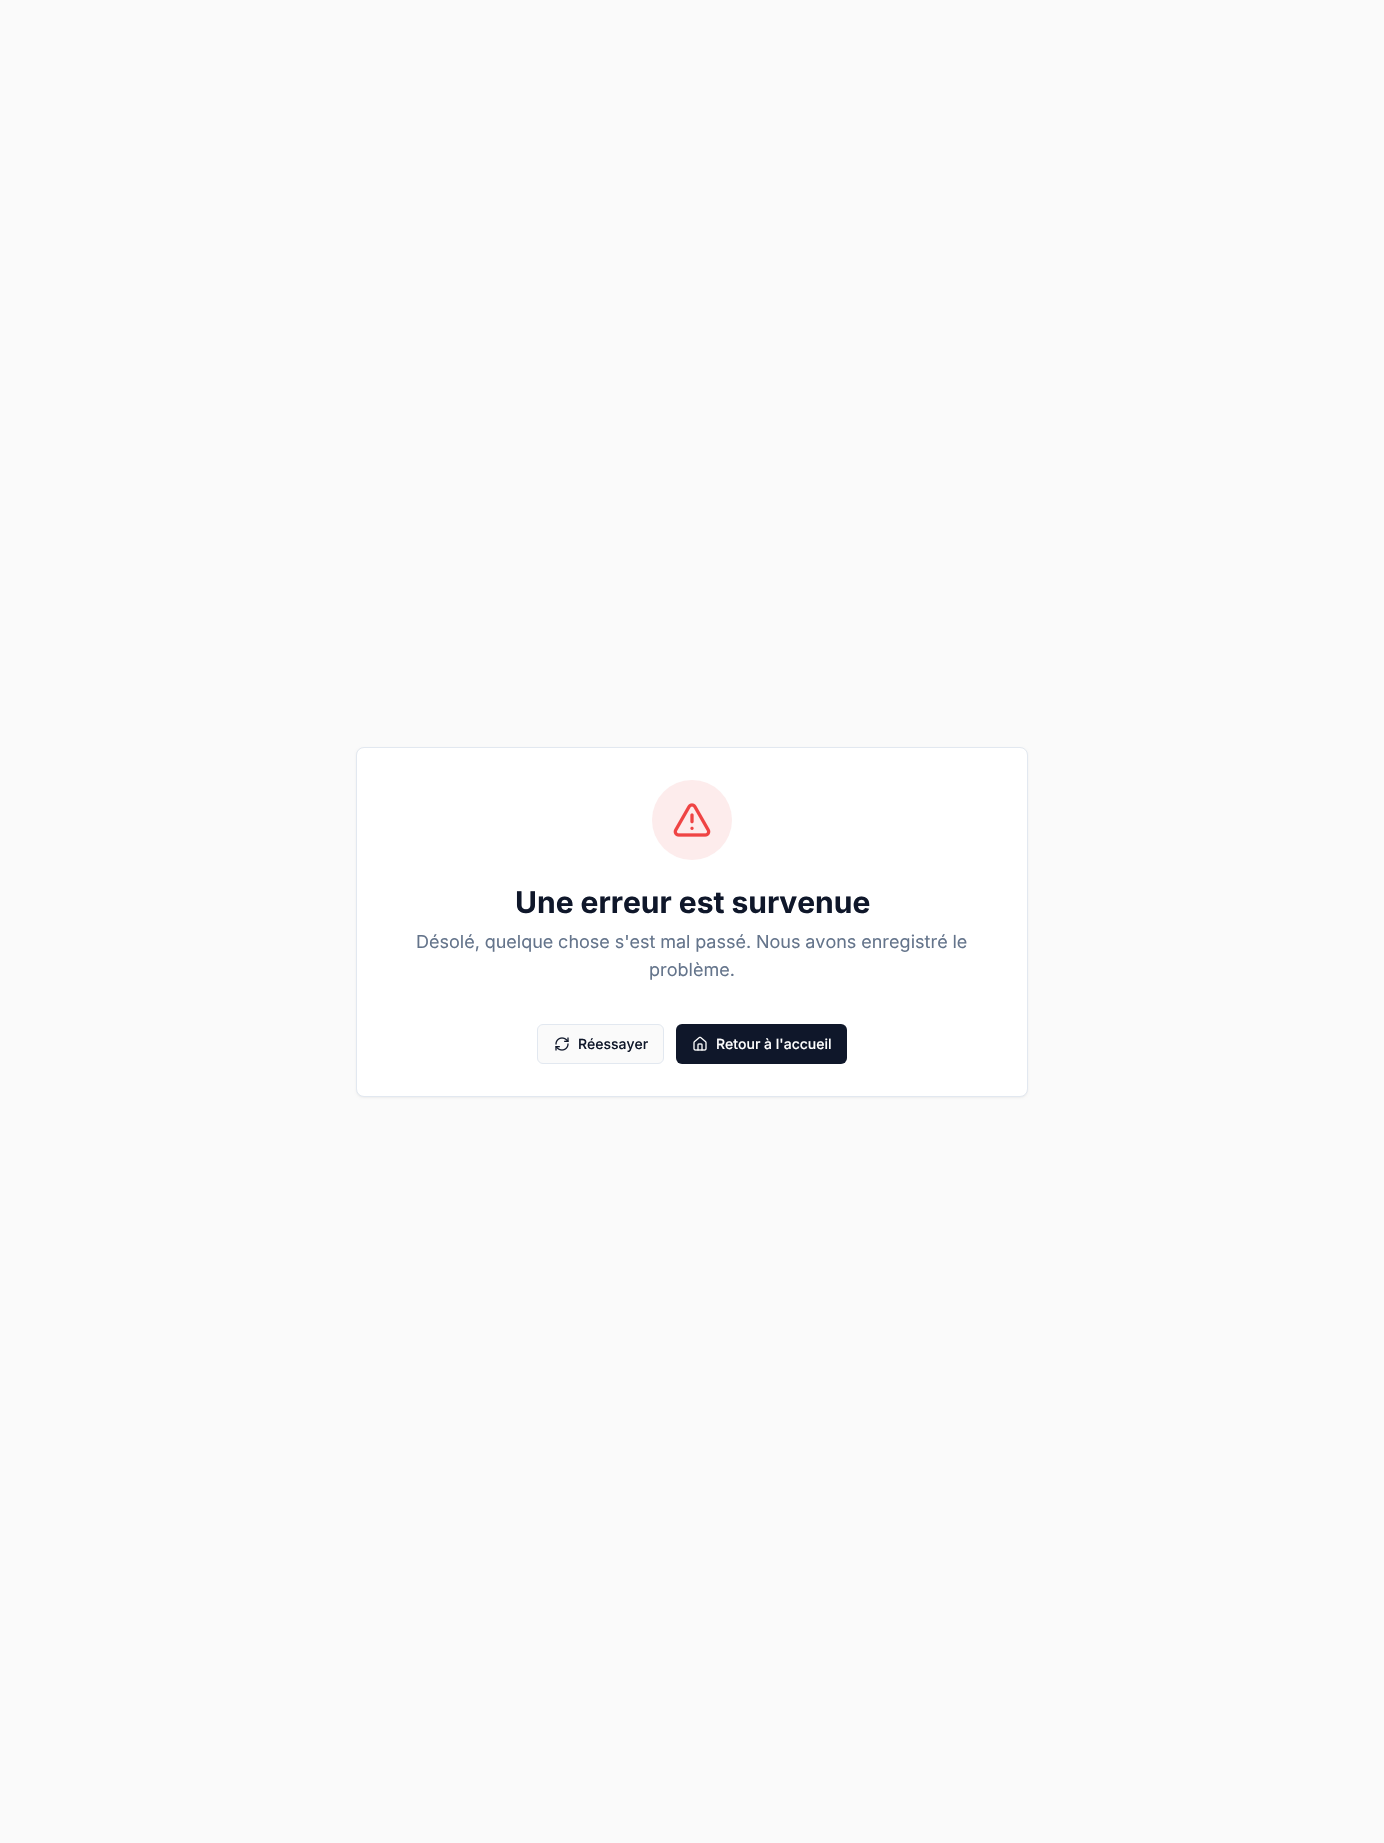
void draw(SkCanvas* canvas) {
	SkPaint paint;
	paint.setAntiAlias(true);
	auto spacedText = [&](const char* s, float x, float y, const SkFont& font, const SkPaint& ink, float letter, float word) {
		std::vector<SkGlyphID> glyphs(font.countText(s, strlen(s), SkTextEncoding::kUTF8));
		std::vector<float> xs(glyphs.size());
		font.textToGlyphs(s, strlen(s), SkTextEncoding::kUTF8, glyphs);
		font.getXPos(glyphs, xs, x);
		float extra = 0;
		for (size_t i = 0; i < glyphs.size(); i++) {
			xs[i] += extra;
			extra += letter + word * (glyphs[i] == font.unicharToGlyph(' '));
		}
		canvas->drawTextBlob(SkTextBlob::MakeFromPosHGlyphs(glyphs, xs, y, font), 0, 0, ink);
	};
	canvas->clear(0xfffafafa);
	paint.setColor(0x0d000000);
	paint.setMaskFilter(SkMaskFilter::MakeBlur(kNormal_SkBlurStyle, 1));
	canvas->drawRoundRect(SkRect::MakeXYWH(356, 748, 672, 350), 8, 8, paint);
	paint.setMaskFilter(nullptr);
	paint.setColor(0xffffffff);
	canvas->drawRoundRect(SkRect::MakeXYWH(356.5, 747.5, 671, 349), 7.5, 7.5, paint);
	paint.setStroke(true);
	paint.setStrokeWidth(1);
	paint.setColor(0xffe2e8f0);
	canvas->drawRoundRect(SkRect::MakeXYWH(356.5, 747.5, 671, 349), 7.5, 7.5, paint);
	paint.setStroke(false);
	paint.setColor(0xfffdecec);
	canvas->drawCircle(692, 820, 40, paint);
	canvas->drawImageRect(SkImages::DeferredFromEncodedData(SkData::MakeFromFileName("img1.png")), SkRect::MakeXYWH(673, 803, 38, 34), SkSamplingOptions());
	SkFont f1(fontMgr->matchFamilyStyle("Inter", SkFontStyle::Bold()), 30);
	f1.setSubpixel(true);
	paint.setColor(0xff0f172a);
	canvas->drawString("Une erreur est survenue", 515, 913, f1, paint);
	SkFont f2(fontMgr->matchFamilyStyle("Inter", SkFontStyle::Normal()), 18);
	f2.setSubpixel(true);
	paint.setColor(0xff64748b);
	spacedText("Désolé, quelque chose s'est mal passé. Nous avons enregistré le", 416, 948, f2, paint, 0, -0.25);
	canvas->drawString("problème.", 649, 976, f2, paint);
	paint.setColor(0xfffafafa);
	canvas->drawRoundRect(SkRect::MakeXYWH(537.5, 1024.5, 126, 39), 5.5, 5.5, paint);
	paint.setStroke(true);
	paint.setColor(0xffe2e8f0);
	canvas->drawRoundRect(SkRect::MakeXYWH(537.5, 1024.5, 126, 39), 5.5, 5.5, paint);
	canvas->drawImageRect(SkImages::DeferredFromEncodedData(SkData::MakeFromFileName("img2.png")), SkRect::MakeXYWH(555, 1037, 14, 14), SkSamplingOptions());
	SkFont f3(fontMgr->matchFamilyStyle("Inter", SkFontStyle(500, SkFontStyle::kNormal_Width, SkFontStyle::kUpright_Slant)), 14);
	f3.setSubpixel(true);
	paint.setStroke(false);
	paint.setColor(0xff0f172a);
	canvas->drawString("Réessayer", 578, 1049, f3, paint);
	canvas->drawRoundRect(SkRect::MakeXYWH(676, 1024, 171, 40), 6, 6, paint);
	canvas->drawImageRect(SkImages::DeferredFromEncodedData(SkData::MakeFromFileName("img3.png")), SkRect::MakeXYWH(693, 1036, 14, 15), SkSamplingOptions());
	paint.setColor(0xffffffff);
	canvas->drawString("Retour à l'accueil", 716, 1049, f3, paint);
}
